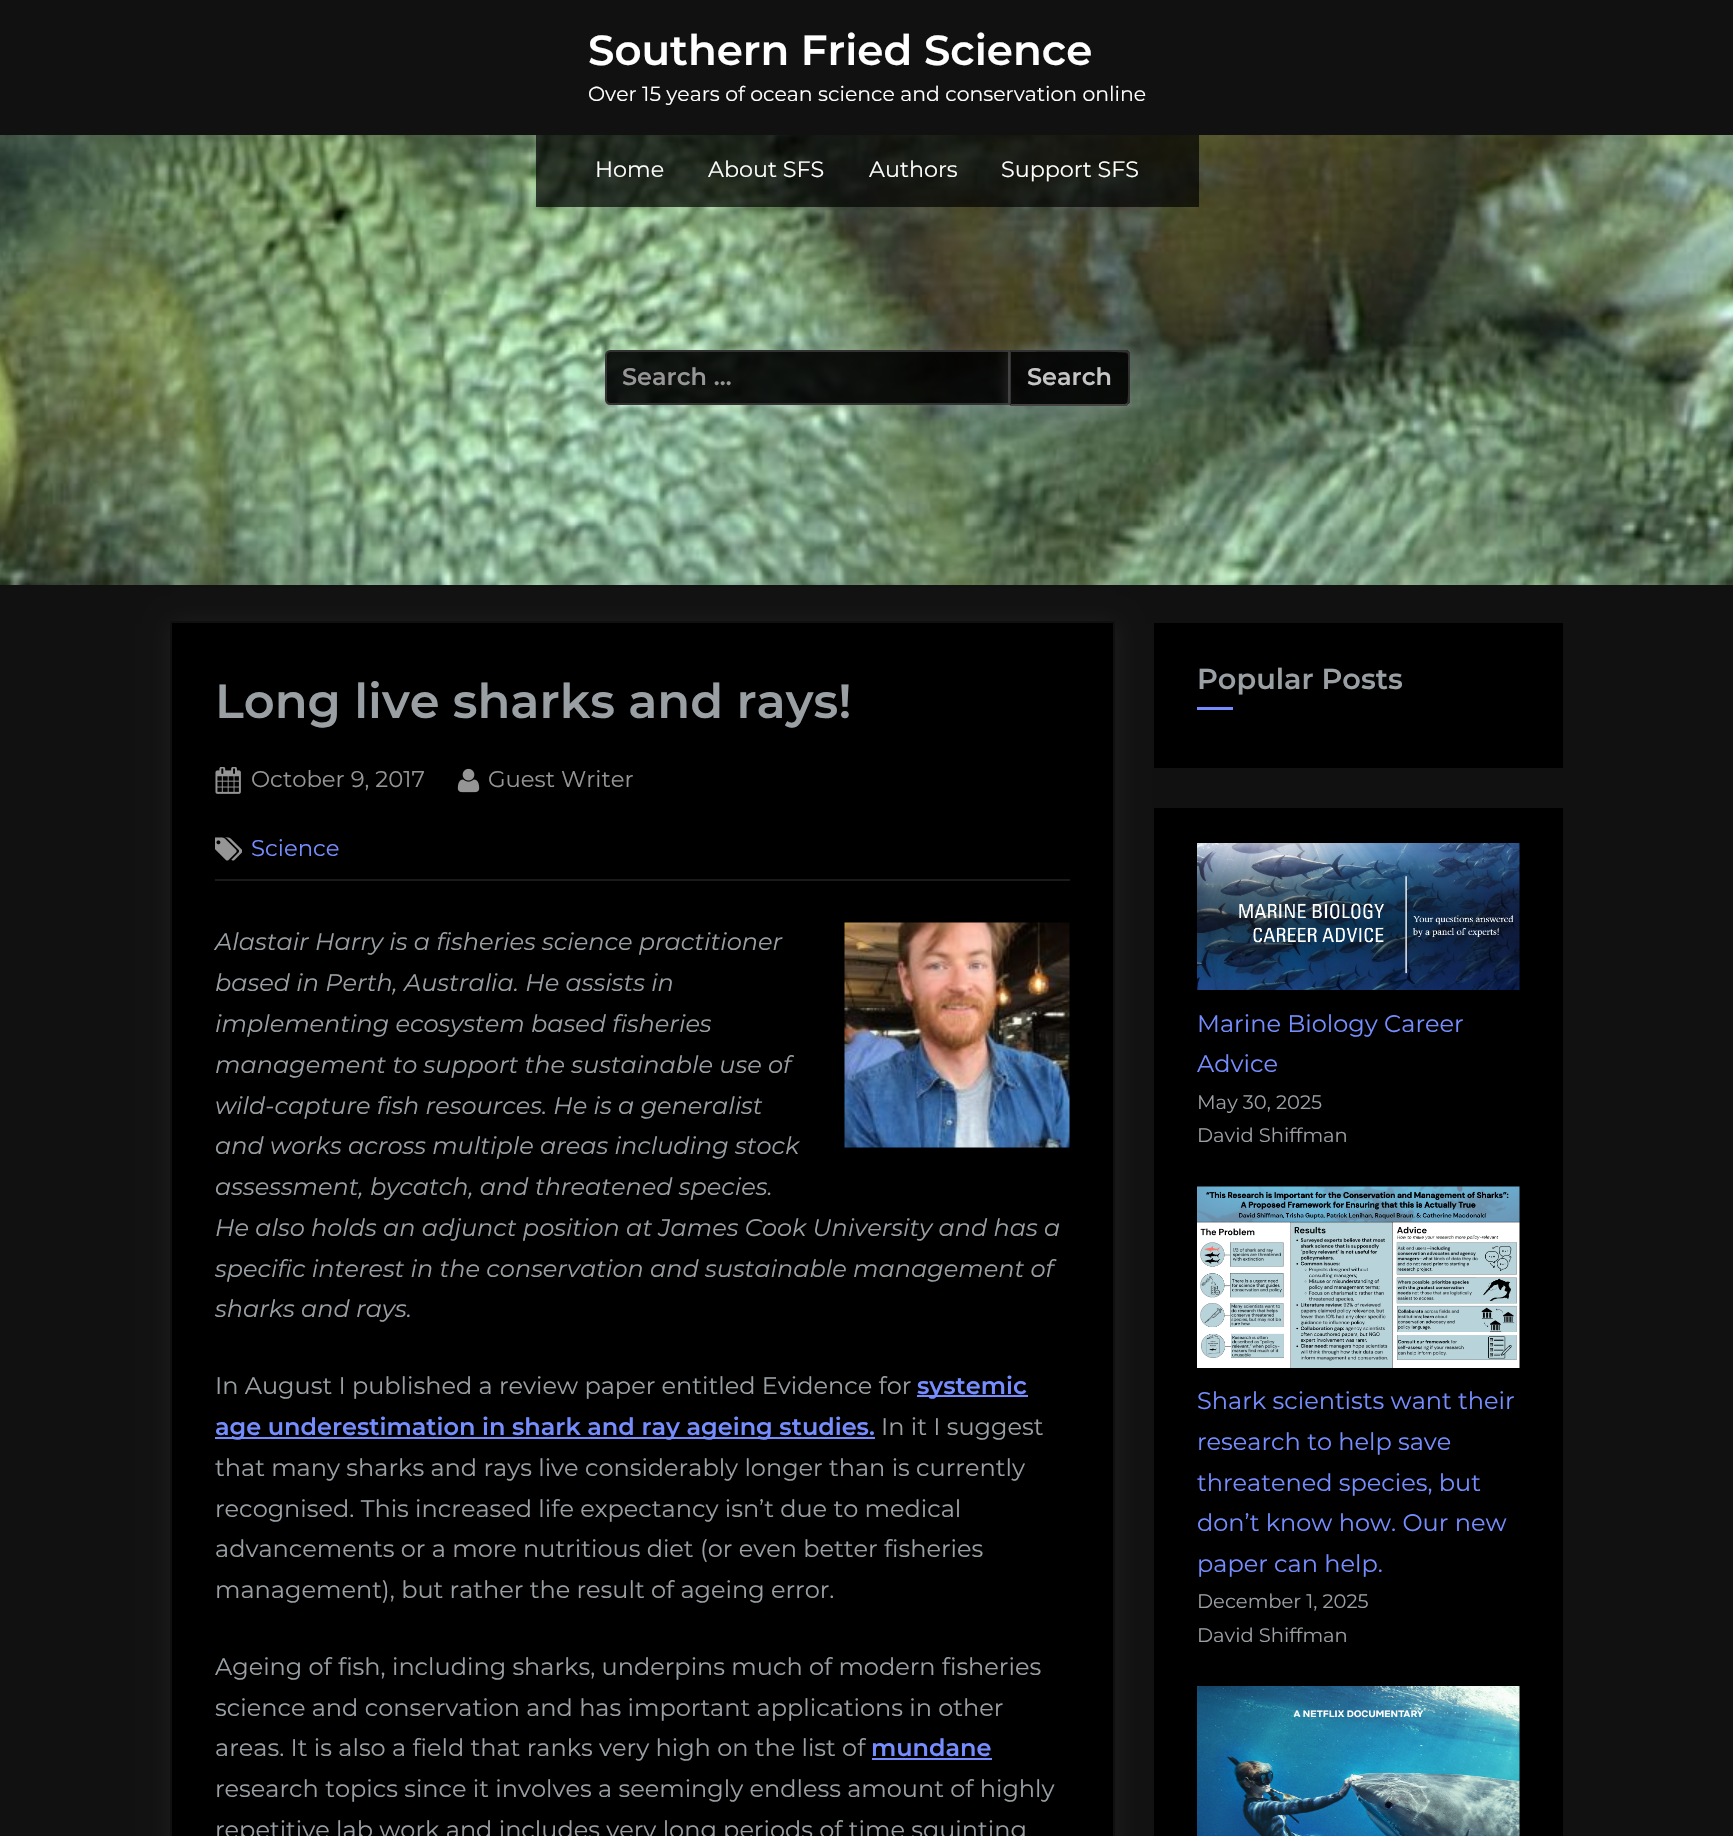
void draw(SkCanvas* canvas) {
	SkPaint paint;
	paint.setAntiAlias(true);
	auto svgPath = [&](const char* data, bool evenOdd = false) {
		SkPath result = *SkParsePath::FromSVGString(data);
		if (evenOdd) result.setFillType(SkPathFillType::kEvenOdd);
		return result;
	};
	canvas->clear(0xff111111);
	SkFont f1(fontMgr->matchFamilyStyle("Montserrat", SkFontStyle(600, SkFontStyle::kNormal_Width, SkFontStyle::kUpright_Slant)), 42);
	f1.setSubpixel(true);
	paint.setColor(0xffffffff);
	canvas->drawString("Southern Fried Science", 588, 65, f1, paint);
	SkFont f2(fontMgr->matchFamilyStyle("Montserrat", SkFontStyle::Normal()), 20.4);
	f2.setSubpixel(true);
	canvas->drawString("Over 15 years of ocean science and conservation online", 588, 101, f2, paint);
	canvas->drawImageRect(SkImages::DeferredFromEncodedData(SkData::MakeFromFileName("img1.png")), SkRect::MakeXYWH(0, 135, 1733, 450), SkSamplingOptions());
	paint.setColor(0xb3000000);
	canvas->drawRect(SkRect::MakeXYWH(536, 135, 663, 72), paint);
	SkFont f3(fontMgr->matchFamilyStyle("Montserrat", SkFontStyle::Normal()), 22.25);
	f3.setSubpixel(true);
	paint.setColor(0xffffffff);
	canvas->drawString("Home", 595, 177, f3, paint);
	canvas->drawString("About SFS", 708, 177, f3, paint);
	canvas->drawString("Authors", 869, 177, f3, paint);
	canvas->drawString("Support SFS", 1001, 177, f3, paint);
	canvas->save();
	canvas->clipPath(svgPath("M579 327H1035V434H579ZM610 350H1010V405H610C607 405 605 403 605 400V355C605 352 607 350 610 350Z", true), true);
	paint.setColor(0x26ffffff);
	paint.setMaskFilter(SkMaskFilter::MakeBlur(kNormal_SkBlurStyle, 7.5));
	canvas->drawRoundRect(SkRect::MakeXYWH(603, 351, 408, 59), 6, 6, paint);
	paint.setMaskFilter(nullptr);
	canvas->restore();
	paint.setColor(0xe6000000);
	canvas->drawPath(svgPath("M610 351H1009V404H610C608 404 606 402 606 400V355C606 353 608 351 610 351Z"), paint);
	paint.setStroke(true);
	paint.setStrokeWidth(2);
	paint.setColor(0xff333333);
	canvas->drawPath(svgPath("M610 351H1009V404H610C608 404 606 402 606 400V355C606 353 608 351 610 351Z"), paint);
	SkFont f4(fontMgr->matchFamilyStyle("Montserrat", SkFontStyle(600, SkFontStyle::kNormal_Width, SkFontStyle::kUpright_Slant)), 24);
	f4.setSubpixel(true);
	paint.setStroke(false);
	paint.setColor(0xff959595);
	canvas->drawString("Search …", 622, 385, f4, paint);
	canvas->save();
	canvas->clipPath(svgPath("M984 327H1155V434H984ZM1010 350H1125C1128 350 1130 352 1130 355V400C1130 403 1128 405 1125 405H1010Z", true), true);
	paint.setColor(0x26ffffff);
	paint.setMaskFilter(SkMaskFilter::MakeBlur(kNormal_SkBlurStyle, 7.5));
	canvas->drawRoundRect(SkRect::MakeXYWH(1008, 351, 123, 59), 6, 6, paint);
	paint.setMaskFilter(nullptr);
	canvas->restore();
	paint.setColor(0xe6000000);
	canvas->drawPath(svgPath("M1010 350H1125C1128 350 1130 352 1130 355V400C1130 403 1128 405 1125 405H1010Z"), paint);
	paint.setColor(0xff333333);
	canvas->drawPath(svgPath("M1010 351V350H1126L1128 351L1127 353C1125 351 1023 352 1011 352Z"), paint);
	canvas->drawPath(svgPath("M1130 403L1128 404L1127 403C1129 401 1128 368 1128 363C1128 361 1129 354 1127 353L1128 351L1130 353Z"), paint);
	paint.setColor(0xff444444);
	canvas->drawPath(svgPath("M1010 406L1011 404H1125L1127 403L1128 404L1127 406Z"), paint);
	paint.setColor(0xff333333);
	canvas->drawPath(svgPath("M1011 352V404L1010 405V351Z"), paint);
	paint.setColor(0xffc5c5c5);
	canvas->drawString("Search", 1027, 385, f4, paint);
	paint.setColor(0x0fffffff);
	paint.setMaskFilter(SkMaskFilter::MakeBlur(kNormal_SkBlurStyle, 12));
	canvas->drawRect(SkRect::MakeXYWH(171, 624, 945, 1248), paint);
	paint.setMaskFilter(nullptr);
	paint.setColor(0xff000000);
	canvas->drawRect(SkRect::MakeXYWH(171, 622, 943, 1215), paint);
	paint.setStroke(true);
	paint.setColor(0xff101010);
	canvas->drawRect(SkRect::MakeXYWH(171, 622, 943, 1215), paint);
	SkFont f5(fontMgr->matchFamilyStyle("Montserrat", SkFontStyle(600, SkFontStyle::kNormal_Width, SkFontStyle::kUpright_Slant)), 48);
	f5.setSubpixel(true);
	paint.setStroke(false);
	paint.setColor(0xff999fa3);
	canvas->drawString("Long live sharks and rays!", 215, 718, f5, paint);
	canvas->drawImageRect(SkImages::DeferredFromEncodedData(SkData::MakeFromFileName("img2.png")), SkRect::MakeXYWH(215, 767, 26, 27), SkSamplingOptions());
	SkFont f6(fontMgr->matchFamilyStyle("Montserrat", SkFontStyle::Normal()), 22.75);
	f6.setSubpixel(true);
	paint.setColor(0xff959595);
	canvas->drawString("October 9, 2017", 251, 787, f6, paint);
	canvas->drawImageRect(SkImages::DeferredFromEncodedData(SkData::MakeFromFileName("img3.png")), SkRect::MakeXYWH(457, 768, 23, 25), SkSamplingOptions());
	canvas->drawString("Guest Writer", 488, 787, f6, paint);
	canvas->drawImageRect(SkImages::DeferredFromEncodedData(SkData::MakeFromFileName("img4.png")), SkRect::MakeXYWH(215, 837, 27, 24), SkSamplingOptions());
	paint.setColor(0xff768dff);
	canvas->drawString("Science", 251, 856, f6, paint);
	paint.setColor(0xff1a1a1a);
	canvas->drawRect(SkRect::MakeXYWH(215, 879, 855, 2), paint);
	SkFont f7(fontMgr->matchFamilyStyle("Montserrat", SkFontStyle::Italic()), 24);
	f7.setSubpixel(true);
	paint.setColor(0xff999fa3);
	canvas->drawString("Alastair Harry is a fisheries science practitioner", 215, 950, f7, paint);
	canvas->drawImageRect(SkImages::DeferredFromEncodedData(SkData::MakeFromFileName("img5.png")), SkRect::MakeXYWH(844, 922, 226, 226), SkSamplingOptions());
	canvas->drawString("based in Perth, Australia. He assists in", 215, 991, f7, paint);
	canvas->drawString("implementing ecosystem based fisheries", 215, 1032, f7, paint);
	canvas->drawString("management to support the sustainable use of", 215, 1073, f7, paint);
	canvas->drawString("wild-capture fish resources. He is a generalist", 215, 1114, f7, paint);
	canvas->drawString("and works across multiple areas including stock", 215, 1154, f7, paint);
	canvas->drawString("assessment, bycatch, and threatened species.", 215, 1195, f7, paint);
	canvas->drawString("He also holds an adjunct position at James Cook University and has a", 215, 1236, f7, paint);
	canvas->drawString("specific interest in the conservation and sustainable management of", 215, 1277, f7, paint);
	canvas->drawString("sharks and rays.", 215, 1317, f7, paint);
	SkFont f8(fontMgr->matchFamilyStyle("Montserrat", SkFontStyle::Normal()), 24);
	f8.setSubpixel(true);
	canvas->drawString("In August I published a review paper entitled Evidence for", 215, 1394, f8, paint);
	paint.setColor(0xff768dff);
	canvas->drawRect(SkRect::MakeXYWH(917, 1395, 111, 2), paint);
	canvas->drawString("systemic", 917, 1394, f4, paint);
	canvas->drawRect(SkRect::MakeXYWH(215, 1437, 660, 2), paint);
	canvas->drawString("age underestimation in shark and ray ageing studies.", 215, 1435, f4, paint);
	paint.setColor(0xff999fa3);
	canvas->drawString("In it I suggest", 881, 1435, f8, paint);
	canvas->drawString("that many sharks and rays live considerably longer than is currently", 215, 1476, f8, paint);
	canvas->drawString("recognised. This increased life expectancy isn’t due to medical", 215, 1517, f8, paint);
	canvas->drawString("advancements or a more nutritious diet (or even better fisheries", 215, 1557, f8, paint);
	canvas->drawString("management), but rather the result of ageing error.", 215, 1598, f8, paint);
	canvas->drawString("Ageing of fish, including sharks, underpins much of modern fisheries", 215, 1675, f8, paint);
	canvas->drawString("science and conservation and has important applications in other", 215, 1716, f8, paint);
	canvas->drawString("areas. It is also a field that ranks very high on the list of", 215, 1756, f8, paint);
	paint.setColor(0xff768dff);
	canvas->drawString("mundane", 871, 1756, f4, paint);
	canvas->drawRect(SkRect::MakeXYWH(872, 1758, 120, 2), paint);
	paint.setColor(0xff999fa3);
	canvas->drawString("research topics since it involves a seemingly endless amount of highly", 215, 1797, f8, paint);
	canvas->drawString("repetitive lab work and includes very long periods of time squinting", 215, 1838, f8, paint);
	paint.setColor(0xff000000);
	canvas->drawRect(SkRect::MakeXYWH(1154, 623, 409, 145), paint);
	SkFont f9(fontMgr->matchFamilyStyle("Montserrat", SkFontStyle(600, SkFontStyle::kNormal_Width, SkFontStyle::kUpright_Slant)), 28.75);
	f9.setSubpixel(true);
	paint.setColor(0xff999fa3);
	canvas->drawString("Popular Posts", 1197, 689, f9, paint);
	paint.setColor(0xff768dff);
	canvas->drawRect(SkRect::MakeXYWH(1197, 707, 36, 3), paint);
	paint.setColor(0xff000000);
	canvas->drawRect(SkRect::MakeXYWH(1154, 808, 409, 1028), paint);
	canvas->drawImageRect(SkImages::DeferredFromEncodedData(SkData::MakeFromFileName("img6.png")), SkRect::MakeXYWH(1197, 843, 323, 147), SkSamplingOptions());
	paint.setColor(0xff768dff);
	canvas->drawString("Marine Biology Career", 1197, 1032, f8, paint);
	canvas->drawString("Advice", 1197, 1072, f8, paint);
	SkFont f10(fontMgr->matchFamilyStyle("Montserrat", SkFontStyle::Normal()), 19.5);
	f10.setSubpixel(true);
	paint.setColor(0xff999fa3);
	canvas->drawString("May 30, 2025", 1197, 1109, f10, paint);
	canvas->drawString("David Shiffman", 1197, 1142, f10, paint);
	canvas->drawImageRect(SkImages::DeferredFromEncodedData(SkData::MakeFromFileName("img7.png")), SkRect::MakeXYWH(1197, 1186, 323, 182), SkSamplingOptions());
	paint.setColor(0xff768dff);
	canvas->drawString("Shark scientists want their", 1197, 1409, f8, paint);
	canvas->drawString("research to help save", 1197, 1450, f8, paint);
	canvas->drawString("threatened species, but", 1197, 1491, f8, paint);
	canvas->drawString("don’t know how. Our new", 1197, 1531, f8, paint);
	canvas->drawString("paper can help.", 1197, 1572, f8, paint);
	paint.setColor(0xff999fa3);
	canvas->drawString("December 1, 2025", 1197, 1608, f10, paint);
	canvas->drawString("David Shiffman", 1197, 1642, f10, paint);
	canvas->drawImageRect(SkImages::DeferredFromEncodedData(SkData::MakeFromFileName("img8.png")), SkRect::MakeXYWH(1197, 1686, 323, 150), SkSamplingOptions());
}
